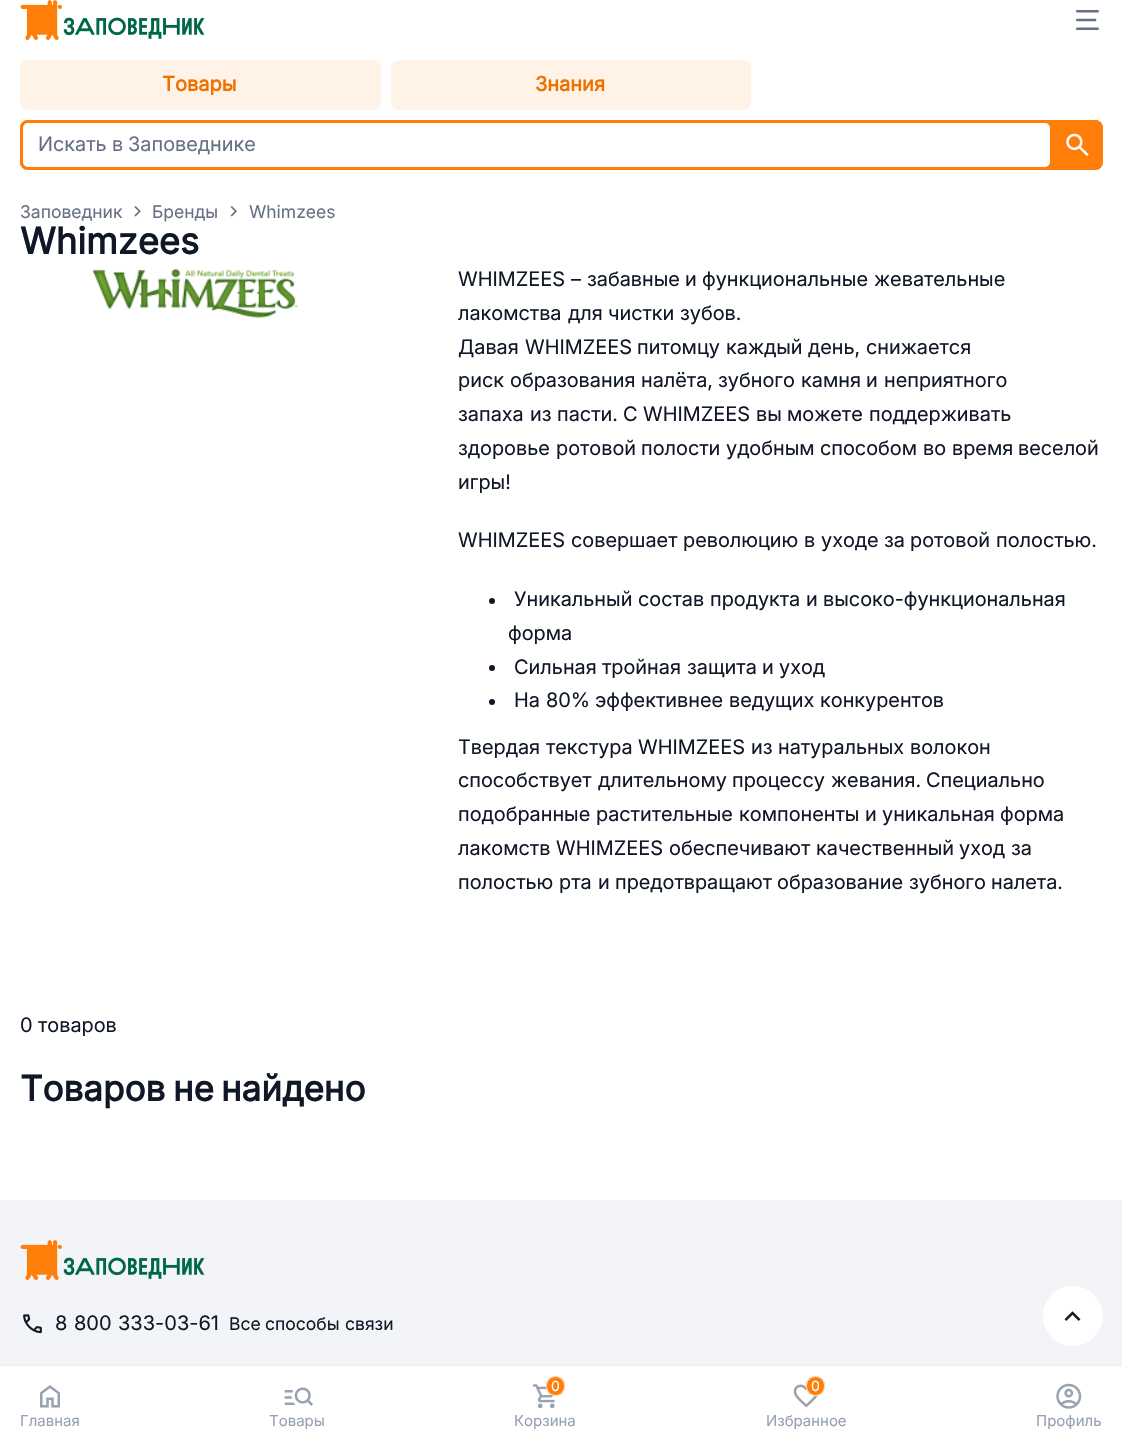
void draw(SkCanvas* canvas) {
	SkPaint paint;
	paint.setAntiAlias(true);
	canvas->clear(0xffffffff);
	canvas->drawImageRect(SkImages::DeferredFromEncodedData(SkData::MakeFromFileName("img1.png")), SkRect::MakeXYWH(20, 0, 185, 40), SkSamplingOptions());
	canvas->drawImageRect(SkImages::DeferredFromEncodedData(SkData::MakeFromFileName("img2.png")), SkRect::MakeXYWH(1076, 10, 23, 20), SkSamplingOptions());
	paint.setColor(0xfffff2e6);
	canvas->drawRoundRect(SkRect::MakeXYWH(20, 60, 361, 50), 8, 8, paint);
	SkFont f1(fontMgr->matchFamilyStyle("Inter", SkFontStyle::Bold()), 20);
	f1.setSubpixel(true);
	paint.setColor(0xffee7100);
	canvas->drawString("Товары", 162, 91, f1, paint);
	paint.setColor(0xfffff2e6);
	canvas->drawRoundRect(SkRect::MakeXYWH(391, 60, 360, 50), 8, 8, paint);
	paint.setColor(0xffee7100);
	canvas->drawString("Знания", 535, 91, f1, paint);
	paint.setColor(0xffff7e0a);
	canvas->drawRoundRect(SkRect::MakeXYWH(20, 120, 1083, 50), 8, 8, paint);
	paint.setColor(0xffffffff);
	canvas->drawRoundRect(SkRect::MakeXYWH(21.5, 121.5, 1030, 47), 6.5, 6.5, paint);
	paint.setStroke(true);
	paint.setStrokeWidth(3);
	paint.setColor(0xffff7e0a);
	canvas->drawRoundRect(SkRect::MakeXYWH(21.5, 121.5, 1030, 47), 6.5, 6.5, paint);
	SkFont f2(fontMgr->matchFamilyStyle("Inter", SkFontStyle::Normal()), 20);
	f2.setSubpixel(true);
	paint.setStroke(false);
	paint.setColor(0xff667085);
	canvas->drawString("Искать", 38, 151, f2, paint);
	canvas->drawString("в", 112, 151, f2, paint);
	canvas->drawString("Заповеднике", 128, 151, f2, paint);
	paint.setColor(0xffff7e0a);
	canvas->drawRoundRect(SkRect::MakeXYWH(1053, 120, 50, 50), 8, 8, paint);
	canvas->drawImageRect(SkImages::DeferredFromEncodedData(SkData::MakeFromFileName("img3.png")), SkRect::MakeXYWH(1066, 133, 23, 24), SkSamplingOptions());
	SkFont f3(fontMgr->matchFamilyStyle("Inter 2", SkFontStyle::Normal()), 17.5);
	f3.setSubpixel(true);
	paint.setColor(0xff667085);
	canvas->drawString("Заповедник", 20, 218, f3, paint);
	canvas->drawImageRect(SkImages::DeferredFromEncodedData(SkData::MakeFromFileName("img4.png")), SkRect::MakeXYWH(134, 206, 7, 11), SkSamplingOptions());
	canvas->drawString("Бренды", 152, 218, f3, paint);
	canvas->drawImageRect(SkImages::DeferredFromEncodedData(SkData::MakeFromFileName("img5.png")), SkRect::MakeXYWH(230, 206, 7, 11), SkSamplingOptions());
	canvas->drawString("Whimzees", 249, 218, f3, paint);
	SkFont f4(fontMgr->matchFamilyStyle("Inter", SkFontStyle::Bold()), 36.25);
	f4.setSubpixel(true);
	paint.setColor(0xff101828);
	canvas->drawString("Whimzees", 20, 254, f4, paint);
	canvas->drawImageRect(SkImages::DeferredFromEncodedData(SkData::MakeFromFileName("img6.png")), SkRect::MakeXYWH(92, 268, 207, 50), SkSamplingOptions());
	canvas->drawString("WHIMZEES", 458, 286, f2, paint);
	canvas->drawString("–", 571, 286, f2, paint);
	canvas->drawString("забавные", 587, 286, f2, paint);
	canvas->drawString("и", 685, 286, f2, paint);
	canvas->drawString("функциональные", 702, 286, f2, paint);
	canvas->drawString("жевательные", 874, 286, f2, paint);
	canvas->drawString("лакомства", 458, 320, f2, paint);
	canvas->drawString("для", 568, 320, f2, paint);
	canvas->drawString("чистки", 608, 320, f2, paint);
	canvas->drawString("зубов.", 680, 320, f2, paint);
	canvas->drawString("Давая", 458, 354, f2, paint);
	canvas->drawString("WHIMZEES", 525, 354, f2, paint);
	canvas->drawString("питомцу", 637, 354, f2, paint);
	canvas->drawString("каждый", 726, 354, f2, paint);
	canvas->drawString("день,", 808, 354, f2, paint);
	canvas->drawString("снижается", 866, 354, f2, paint);
	canvas->drawString("риск", 458, 387, f2, paint);
	canvas->drawString("образования", 510, 387, f2, paint);
	canvas->drawString("налёта,", 641, 387, f2, paint);
	canvas->drawString("зубного", 718, 387, f2, paint);
	canvas->drawString("камня", 801, 387, f2, paint);
	canvas->drawString("и", 866, 387, f2, paint);
	canvas->drawString("неприятного", 884, 387, f2, paint);
	canvas->drawString("запаха", 458, 421, f2, paint);
	canvas->drawString("из", 530, 421, f2, paint);
	canvas->drawString("пасти.", 557, 421, f2, paint);
	canvas->drawString("С", 623, 421, f2, paint);
	canvas->drawString("WHIMZEES", 643, 421, f2, paint);
	canvas->drawString("вы", 756, 421, f2, paint);
	canvas->drawString("можете", 787, 421, f2, paint);
	canvas->drawString("поддерживать", 869, 421, f2, paint);
	canvas->drawString("здоровье", 458, 455, f2, paint);
	canvas->drawString("ротовой", 556, 455, f2, paint);
	canvas->drawString("полости", 641, 455, f2, paint);
	canvas->drawString("удобным", 726, 455, f2, paint);
	canvas->drawString("способом", 820, 455, f2, paint);
	canvas->drawString("во", 923, 455, f2, paint);
	canvas->drawString("время", 952, 455, f2, paint);
	canvas->drawString("веселой", 1018, 455, f2, paint);
	canvas->drawString("игры!", 458, 489, f2, paint);
	canvas->drawString("WHIMZEES", 458, 547, f2, paint);
	canvas->drawString("совершает", 571, 547, f2, paint);
	canvas->drawString("революцию", 683, 547, f2, paint);
	canvas->drawString("в", 804, 547, f2, paint);
	canvas->drawString("уходе", 821, 547, f2, paint);
	canvas->drawString("за", 884, 547, f2, paint);
	canvas->drawString("ротовой", 910, 547, f2, paint);
	canvas->drawString("полостью.", 996, 547, f2, paint);
	canvas->drawCircle(492, 601, 3, paint);
	canvas->drawString("Уникальный", 514, 606, f2, paint);
	canvas->drawString("состав", 638, 606, f2, paint);
	canvas->drawString("продукта", 710, 606, f2, paint);
	canvas->drawString("и", 806, 606, f2, paint);
	canvas->drawString("высоко-функциональная", 823, 606, f2, paint);
	canvas->drawString("форма", 508, 640, f2, paint);
	canvas->drawCircle(492, 668, 3, paint);
	canvas->drawString("Сильная", 514, 674, f2, paint);
	canvas->drawString("тройная", 602, 674, f2, paint);
	canvas->drawString("защита", 687, 674, f2, paint);
	canvas->drawString("и", 762, 674, f2, paint);
	canvas->drawString("уход", 779, 674, f2, paint);
	canvas->drawCircle(492, 702, 3, paint);
	canvas->drawString("На", 514, 707, f2, paint);
	canvas->drawString("80%", 546, 707, f2, paint);
	canvas->drawString("эффективнее", 595, 707, f2, paint);
	canvas->drawString("ведущих", 729, 707, f2, paint);
	canvas->drawString("конкурентов", 820, 707, f2, paint);
	canvas->drawString("Твердая", 458, 754, f2, paint);
	canvas->drawString("текстура", 546, 754, f2, paint);
	canvas->drawString("WHIMZEES", 638, 754, f2, paint);
	canvas->drawString("из", 751, 754, f2, paint);
	canvas->drawString("натуральных", 778, 754, f2, paint);
	canvas->drawString("волокон", 910, 754, f2, paint);
	canvas->drawString("способствует", 458, 787, f2, paint);
	canvas->drawString("длительному", 598, 787, f2, paint);
	canvas->drawString("процессу", 732, 787, f2, paint);
	canvas->drawString("жевания.", 831, 787, f2, paint);
	canvas->drawString("Специально", 926, 787, f2, paint);
	canvas->drawString("подобранные", 458, 821, f2, paint);
	canvas->drawString("растительные", 596, 821, f2, paint);
	canvas->drawString("компоненты", 739, 821, f2, paint);
	canvas->drawString("и", 865, 821, f2, paint);
	canvas->drawString("уникальная", 882, 821, f2, paint);
	canvas->drawString("форма", 1000, 821, f2, paint);
	canvas->drawString("лакомств", 458, 855, f2, paint);
	canvas->drawString("WHIMZEES", 556, 855, f2, paint);
	canvas->drawString("обеспечивают", 669, 855, f2, paint);
	canvas->drawString("качественный", 816, 855, f2, paint);
	canvas->drawString("уход", 959, 855, f2, paint);
	canvas->drawString("за", 1011, 855, f2, paint);
	canvas->drawString("полостью", 458, 889, f2, paint);
	canvas->drawString("рта", 559, 889, f2, paint);
	canvas->drawString("и", 598, 889, f2, paint);
	canvas->drawString("предотвращают", 615, 889, f2, paint);
	canvas->drawString("образование", 777, 889, f2, paint);
	canvas->drawString("зубного", 909, 889, f2, paint);
	canvas->drawString("налета.", 991, 889, f2, paint);
	canvas->drawString("0", 20, 1032, f2, paint);
	canvas->drawString("товаров", 38, 1032, f2, paint);
	SkFont f5(fontMgr->matchFamilyStyle("Inter", SkFontStyle::Bold()), 35);
	f5.setSubpixel(true);
	canvas->drawString("Товаров", 20, 1101, f5, paint);
	canvas->drawString("не", 173, 1101, f5, paint);
	canvas->drawString("найдено", 221, 1101, f5, paint);
	paint.setColor(0xfff2f4f7);
	canvas->drawRect(SkRect::MakeXYWH(0, 1200, 1122, 165), paint);
	paint.setColor(0xffffffff);
	canvas->drawCircle(1073, 1316, 30, paint);
	canvas->drawImageRect(SkImages::DeferredFromEncodedData(SkData::MakeFromFileName("img7.png")), SkRect::MakeXYWH(1064, 1311, 17, 10), SkSamplingOptions());
	canvas->drawImageRect(SkImages::DeferredFromEncodedData(SkData::MakeFromFileName("img8.png")), SkRect::MakeXYWH(20, 1240, 185, 40), SkSamplingOptions());
	canvas->drawImageRect(SkImages::DeferredFromEncodedData(SkData::MakeFromFileName("img9.png")), SkRect::MakeXYWH(23, 1314, 19, 20), SkSamplingOptions());
	SkFont f6(fontMgr->matchFamilyStyle("Inter 2", SkFontStyle::Normal()), 20);
	f6.setSubpixel(true);
	paint.setColor(0xff101828);
	canvas->drawString("8", 55, 1330, f6, paint);
	canvas->drawString("800", 74, 1330, f6, paint);
	canvas->drawString("333-03-61", 118, 1330, f6, paint);
	canvas->drawString("Все", 229, 1330, f3, paint);
	canvas->drawString("способы", 265, 1330, f3, paint);
	canvas->drawString("связи", 345, 1330, f3, paint);
	paint.setStroke(true);
	paint.setStrokeWidth(1);
	paint.setColor(0xffeaecf0);
	canvas->drawRect(SkRect::MakeXYWH(-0.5, 1365.5, 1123, 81), paint);
	canvas->drawImageRect(SkImages::DeferredFromEncodedData(SkData::MakeFromFileName("img10.png")), SkRect::MakeXYWH(40, 1385, 20, 23), SkSamplingOptions());
	SkFont f7(fontMgr->matchFamilyStyle("Inter 2", SkFontStyle::Normal()), 15);
	f7.setSubpixel(true);
	paint.setStroke(false);
	paint.setColor(0xff98a2b3);
	canvas->drawString("Главная", 20, 1426, f7, paint);
	canvas->drawImageRect(SkImages::DeferredFromEncodedData(SkData::MakeFromFileName("img11.png")), SkRect::MakeXYWH(284, 1387, 29, 19), SkSamplingOptions());
	canvas->drawString("Товары", 269, 1426, f7, paint);
	canvas->drawImageRect(SkImages::DeferredFromEncodedData(SkData::MakeFromFileName("img12.png")), SkRect::MakeXYWH(533, 1384, 22, 25), SkSamplingOptions());
	paint.setColor(0xffff7e0a);
	canvas->drawRoundRect(SkRect::MakeXYWH(546, 1376, 19, 20), 9.5, 9.5, paint);
	paint.setStroke(true);
	paint.setColor(0xccffffff);
	canvas->drawRoundRect(SkRect::MakeXYWH(546.5, 1376.5, 18, 19), 9, 9, paint);
	SkFont f8(fontMgr->matchFamilyStyle("Inter 2", SkFontStyle::Normal()), 14);
	f8.setSubpixel(true);
	paint.setStroke(false);
	paint.setColor(0xffffffff);
	canvas->drawString("0", 551, 1391, f8, paint);
	paint.setColor(0xff98a2b3);
	canvas->drawString("Корзина", 514, 1426, f7, paint);
	canvas->drawImageRect(SkImages::DeferredFromEncodedData(SkData::MakeFromFileName("img13.png")), SkRect::MakeXYWH(793, 1384, 25, 24), SkSamplingOptions());
	paint.setColor(0xffff7e0a);
	canvas->drawRoundRect(SkRect::MakeXYWH(806, 1376, 19, 20), 9.5, 9.5, paint);
	paint.setStroke(true);
	paint.setColor(0xccffffff);
	canvas->drawRoundRect(SkRect::MakeXYWH(806.5, 1376.5, 18, 19), 9, 9, paint);
	paint.setStroke(false);
	paint.setColor(0xffffffff);
	canvas->drawString("0", 811, 1391, f8, paint);
	paint.setColor(0xff98a2b3);
	canvas->drawString("Избранное", 766, 1426, f7, paint);
	canvas->drawImageRect(SkImages::DeferredFromEncodedData(SkData::MakeFromFileName("img14.png")), SkRect::MakeXYWH(1056, 1383, 26, 26), SkSamplingOptions());
	canvas->drawString("Профиль", 1036, 1426, f7, paint);
}
